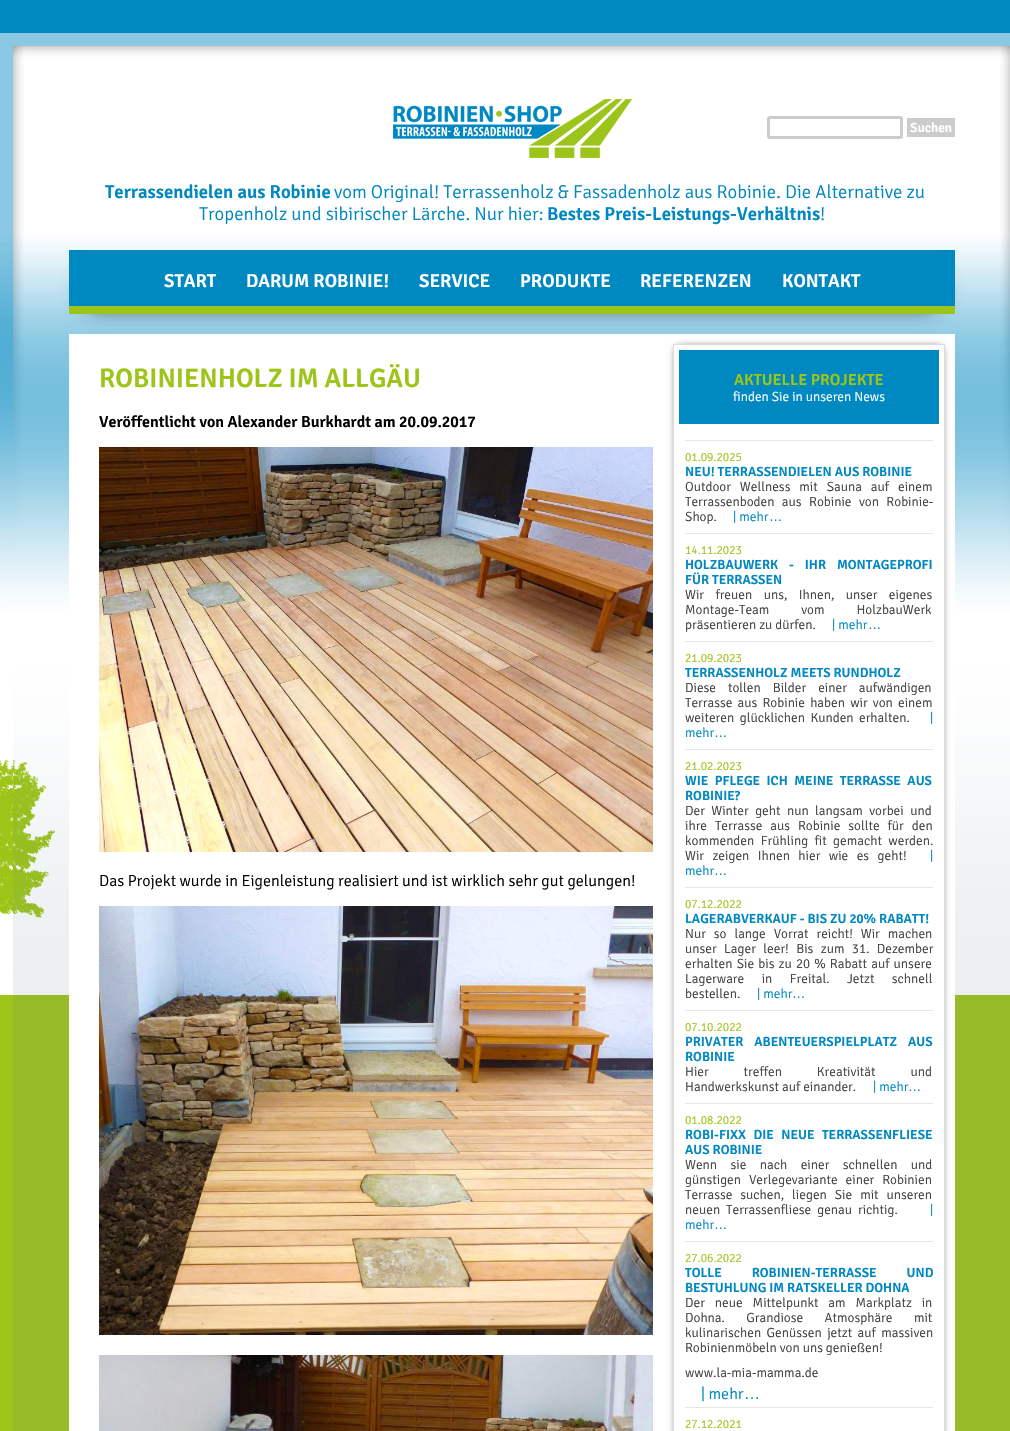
void draw(SkCanvas* canvas) {
	SkPaint paint;
	paint.setAntiAlias(true);
	auto spacedText = [&](const char* s, float x, float y, const SkFont& font, const SkPaint& ink, float letter, float word) {
		std::vector<SkGlyphID> glyphs(font.countText(s, strlen(s), SkTextEncoding::kUTF8));
		std::vector<float> xs(glyphs.size());
		font.textToGlyphs(s, strlen(s), SkTextEncoding::kUTF8, glyphs);
		font.getXPos(glyphs, xs, x);
		float extra = 0;
		for (size_t i = 0; i < glyphs.size(); i++) {
			xs[i] += extra;
			extra += letter + word * (glyphs[i] == font.unicharToGlyph(' '));
		}
		canvas->drawTextBlob(SkTextBlob::MakeFromPosHGlyphs(glyphs, xs, y, font), 0, 0, ink);
	};
	auto svgPath = [&](const char* data, bool evenOdd = false) {
		SkPath result = *SkParsePath::FromSVGString(data);
		if (evenOdd) result.setFillType(SkPathFillType::kEvenOdd);
		return result;
	};
	canvas->clear(0xff9dc418);
	canvas->drawImageRect(SkImages::DeferredFromEncodedData(SkData::MakeFromFileName("img1.png")), SkRect::MakeXYWH(0, 0, 1010, 995), SkSamplingOptions());
	canvas->drawImageRect(SkImages::DeferredFromEncodedData(SkData::MakeFromFileName("img2.png")), SkRect::MakeXYWH(0, 33, 1010, 463), SkSamplingOptions());
	paint.setColor(0xff97bb26);
	canvas->drawRect(SkRect::MakeXYWH(13, 995, 997, 436), paint);
	canvas->drawImageRect(SkImages::DeferredFromEncodedData(SkData::MakeFromFileName("img3.png")), SkRect::MakeXYWH(13, 46, 997, 949), SkSamplingOptions());
	canvas->drawImageRect(SkImages::DeferredFromEncodedData(SkData::MakeFromFileName("img4.png")), SkRect::MakeXYWH(393, 99, 239, 59), SkSamplingOptions());
	paint.setStroke(true);
	paint.setStrokeWidth(3);
	paint.setColor(0xffcccccc);
	canvas->drawRoundRect(SkRect::MakeXYWH(768.5, 117.5, 133, 20), 1.5, 1.5, paint);
	paint.setStroke(false);
	canvas->drawRect(SkRect::MakeXYWH(907, 118, 48, 19), paint);
	SkFont f1(fontMgr->matchFamilyStyle("Signika", SkFontStyle(600, SkFontStyle::kNormal_Width, SkFontStyle::kUpright_Slant)), 13.3);
	f1.setSubpixel(true);
	paint.setColor(0xffffffff);
	canvas->drawString("Suchen", 910, 132, f1, paint);
	SkFont f2(fontMgr->matchFamilyStyle("Signika", SkFontStyle(600, SkFontStyle::kNormal_Width, SkFontStyle::kUpright_Slant)), 18.7);
	f2.setSubpixel(true);
	paint.setColor(0xff0088c1);
	canvas->drawString("Terrassendielen aus Robinie", 105, 198, f2, paint);
	SkFont f3(fontMgr->matchFamilyStyle("Signika", SkFontStyle(300, SkFontStyle::kNormal_Width, SkFontStyle::kUpright_Slant)), 18.7);
	f3.setSubpixel(true);
	canvas->drawString("vom Original! Terrassenholz & Fassadenholz aus Robinie. Die Alternative zu", 334, 198, f3, paint);
	canvas->drawString("Tropenholz und sibirischer Lärche. Nur hier:", 199, 220, f3, paint);
	canvas->drawString("Bestes Preis-Leistungs-Verhältnis", 547, 220, f2, paint);
	canvas->drawString("!", 820, 220, f3, paint);
	paint.setColor(0xffffffff);
	canvas->drawRect(SkRect::MakeXYWH(69, 334, 886, 1097), paint);
	canvas->save();
	canvas->clipPath(svgPath("M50 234H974V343H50ZM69 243H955V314H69Z", true), true);
	paint.setColor(0xff000000);
	paint.setMaskFilter(SkMaskFilter::MakeBlur(kNormal_SkBlurStyle, 12.5));
	canvas->drawRect(SkRect::MakeXYWH(89, 273, 846, 31), paint);
	paint.setMaskFilter(nullptr);
	canvas->restore();
	canvas->drawImageRect(SkImages::DeferredFromEncodedData(SkData::MakeFromFileName("img5.png")), SkRect::MakeXYWH(69, 250, 886, 64), SkSamplingOptions());
	paint.setColor(0xffffffff);
	canvas->drawString("START", 164, 287, f2, paint);
	canvas->drawString("DARUM ROBINIE!", 246, 287, f2, paint);
	canvas->drawString("SERVICE", 419, 287, f2, paint);
	canvas->drawString("PRODUKTE", 520, 287, f2, paint);
	canvas->drawString("REFERENZEN", 640, 287, f2, paint);
	canvas->drawString("KONTAKT", 782, 287, f2, paint);
	SkFont f4(fontMgr->matchFamilyStyle("Signika", SkFontStyle(600, SkFontStyle::kNormal_Width, SkFontStyle::kUpright_Slant)), 26.75);
	f4.setSubpixel(true);
	paint.setColor(0xff9dc418);
	canvas->drawString("ROBINIENHOLZ IM ALLGÄU", 99, 387, f4, paint);
	SkFont f5(fontMgr->matchFamilyStyle("Signika", SkFontStyle(600, SkFontStyle::kNormal_Width, SkFontStyle::kUpright_Slant)), 16);
	f5.setSubpixel(true);
	paint.setColor(0xff000000);
	canvas->drawString("Veröffentlicht von Alexander Burkhardt am 20.09.2017", 99, 427, f5, paint);
	canvas->drawImageRect(SkImages::DeferredFromEncodedData(SkData::MakeFromFileName("img6.png")), SkRect::MakeXYWH(99, 447, 554, 405), SkSamplingOptions());
	SkFont f6(fontMgr->matchFamilyStyle("Signika", SkFontStyle(300, SkFontStyle::kNormal_Width, SkFontStyle::kUpright_Slant)), 16);
	f6.setSubpixel(true);
	canvas->drawString("Das Projekt wurde in Eigenleistung realisiert und ist wirklich sehr gut gelungen!", 99, 886, f6, paint);
	canvas->drawImageRect(SkImages::DeferredFromEncodedData(SkData::MakeFromFileName("img7.png")), SkRect::MakeXYWH(99, 906, 554, 429), SkSamplingOptions());
	canvas->drawImageRect(SkImages::DeferredFromEncodedData(SkData::MakeFromFileName("img8.png")), SkRect::MakeXYWH(99, 1355, 554, 76), SkSamplingOptions());
	canvas->save();
	canvas->clipPath(svgPath("M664 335H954V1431H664ZM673 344H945V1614H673Z", true), true);
	paint.setMaskFilter(SkMaskFilter::MakeBlur(kNormal_SkBlurStyle, 4));
	canvas->drawRect(SkRect::MakeXYWH(677, 348, 264, 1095), paint);
	paint.setMaskFilter(nullptr);
	canvas->restore();
	paint.setStroke(true);
	paint.setStrokeWidth(1);
	paint.setColor(0xffdedede);
	canvas->drawRect(SkRect::MakeXYWH(673.5, 344.5, 271, 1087), paint);
	paint.setStroke(false);
	paint.setColor(0xff0088c1);
	canvas->drawRect(SkRect::MakeXYWH(679, 350, 260, 74), paint);
	paint.setColor(0xff9dc418);
	canvas->drawString("AKTUELLE PROJEKTE", 734, 385, f5, paint);
	SkFont f7(fontMgr->matchFamilyStyle("Signika", SkFontStyle(300, SkFontStyle::kNormal_Width, SkFontStyle::kUpright_Slant)), 13.3);
	f7.setSubpixel(true);
	paint.setColor(0xffffffff);
	canvas->drawString("finden Sie in unseren News", 733, 401, f7, paint);
	paint.setColor(0xffe6e6e6);
	canvas->drawRect(SkRect::MakeXYWH(685, 440, 248, 1), paint);
	SkFont f8(fontMgr->matchFamilyStyle("Signika", SkFontStyle(300, SkFontStyle::kNormal_Width, SkFontStyle::kUpright_Slant)), 12);
	f8.setSubpixel(true);
	paint.setColor(0xff9dc418);
	canvas->drawString("01.09.2025", 685, 461, f8, paint);
	paint.setColor(0xff0088c1);
	canvas->drawString("NEU! TERRASSENDIELEN AUS ROBINIE", 685, 476, f1, paint);
	paint.setColor(0xff404040);
	spacedText("Outdoor Wellness mit Sauna auf einem", 685, 491, f7, paint, 0, 6);
	spacedText("Terrassenboden aus Robinie von Robinie-", 685, 506, f7, paint, 0, 4.5);
	canvas->drawString("Shop.", 685, 521, f7, paint);
	paint.setColor(0xff0088c1);
	canvas->drawString("| mehr", 733, 521, f7, paint);
	SkFont f9(fontMgr->matchFamilyStyle("Liberation Sans", SkFontStyle::Normal()), 13.3);
	f9.setSubpixel(true);
	canvas->drawString("…", 769, 521, f9, paint);
	paint.setColor(0xffe6e6e6);
	canvas->drawRect(SkRect::MakeXYWH(685, 533, 248, 1), paint);
	paint.setColor(0xff9dc418);
	canvas->drawString("14.11.2023", 685, 554, f8, paint);
	paint.setColor(0xff0088c1);
	spacedText("HOLZBAUWERK - IHR MONTAGEPROFI", 685, 569, f1, paint, 0, 8);
	canvas->drawString("FÜR TERRASSEN", 685, 584, f1, paint);
	paint.setColor(0xff404040);
	spacedText("Wir freuen uns, Ihnen, unser eigenes", 685, 599, f7, paint, 0, 8.5);
	spacedText("Montage-Team vom HolzbauWerk", 685, 614, f7, paint, 0, 29);
	canvas->drawString("präsentieren zu dürfen.", 685, 629, f7, paint);
	paint.setColor(0xff0088c1);
	canvas->drawString("| mehr", 832, 629, f7, paint);
	canvas->drawString("…", 868, 629, f9, paint);
	paint.setColor(0xffe6e6e6);
	canvas->drawRect(SkRect::MakeXYWH(685, 641, 248, 1), paint);
	paint.setColor(0xff9dc418);
	canvas->drawString("21.09.2023", 685, 662, f8, paint);
	paint.setColor(0xff0088c1);
	canvas->drawString("TERRASSENHOLZ MEETS RUNDHOLZ", 685, 677, f1, paint);
	paint.setColor(0xff404040);
	spacedText("Diese tollen Bilder einer aufwändigen", 685, 692, f7, paint, 0, 9);
	spacedText("Terrasse aus Robinie haben wir von einem", 685, 707, f7, paint, 0, 2.25);
	spacedText("weiteren glücklichen Kunden erhalten.", 685, 722, f7, paint, 0, 2.5);
	paint.setColor(0xff0088c1);
	canvas->drawString("|", 930, 722, f7, paint);
	canvas->drawString("mehr", 685, 737, f7, paint);
	canvas->drawString("…", 714, 737, f9, paint);
	paint.setColor(0xffe6e6e6);
	canvas->drawRect(SkRect::MakeXYWH(685, 749, 248, 1), paint);
	paint.setColor(0xff9dc418);
	canvas->drawString("21.02.2023", 685, 770, f8, paint);
	paint.setColor(0xff0088c1);
	spacedText("WIE PFLEGE ICH MEINE TERRASSE AUS", 685, 785, f1, paint, 0, 3.5);
	canvas->drawString("ROBINIE?", 685, 800, f1, paint);
	paint.setColor(0xff404040);
	spacedText("Der Winter geht nun langsam vorbei und", 685, 815, f7, paint, 0, 3.5);
	spacedText("ihre Terrasse aus Robinie sollte für den", 685, 830, f7, paint, 0, 5);
	spacedText("kommenden Frühling fit gemacht werden.", 685, 845, f7, paint, 0, 3.5);
	spacedText("Wir zeigen Ihnen hier wie es geht!", 685, 860, f7, paint, 0, 5.5);
	paint.setColor(0xff0088c1);
	canvas->drawString("|", 930, 860, f7, paint);
	canvas->drawString("mehr", 685, 875, f7, paint);
	canvas->drawString("…", 714, 875, f9, paint);
	paint.setColor(0xffe6e6e6);
	canvas->drawRect(SkRect::MakeXYWH(685, 887, 248, 1), paint);
	paint.setColor(0xff9dc418);
	canvas->drawString("07.12.2022", 685, 908, f8, paint);
	paint.setColor(0xff0088c1);
	canvas->drawString("LAGERABVERKAUF - BIS ZU 20% RABATT!", 685, 923, f1, paint);
	paint.setColor(0xff404040);
	spacedText("Nur so lange Vorrat reicht! Wir machen", 685, 938, f7, paint, 0, 5);
	spacedText("unser Lager leer! Bis zum 31. Dezember", 685, 953, f7, paint, 0, 4.5);
	spacedText("erhalten Sie bis zu 20 % Rabatt auf unsere", 685, 968, f7, paint, 0, 1.25);
	spacedText("Lagerware in Freital. Jetzt schnell", 685, 983, f7, paint, 0, 14.5);
	canvas->drawString("bestellen.", 685, 998, f7, paint);
	paint.setColor(0xff0088c1);
	canvas->drawString("| mehr", 757, 998, f7, paint);
	canvas->drawString("…", 792, 998, f9, paint);
	paint.setColor(0xffe6e6e6);
	canvas->drawRect(SkRect::MakeXYWH(685, 1010, 248, 1), paint);
	paint.setColor(0xff9dc418);
	canvas->drawString("07.10.2022", 685, 1031, f8, paint);
	paint.setColor(0xff0088c1);
	spacedText("PRIVATER ABENTEUERSPIELPLATZ AUS", 685, 1046, f1, paint, 0, 8);
	canvas->drawString("ROBINIE", 685, 1061, f1, paint);
	paint.setColor(0xff404040);
	spacedText("Hier treffen Kreativität und", 685, 1076, f7, paint, 0, 32);
	canvas->drawString("Handwerkskunst auf einander.", 685, 1091, f7, paint);
	paint.setColor(0xff0088c1);
	canvas->drawString("| mehr", 873, 1091, f7, paint);
	canvas->drawString("…", 908, 1091, f9, paint);
	paint.setColor(0xffe6e6e6);
	canvas->drawRect(SkRect::MakeXYWH(685, 1103, 248, 1), paint);
	paint.setColor(0xff9dc418);
	canvas->drawString("01.08.2022", 685, 1124, f8, paint);
	paint.setColor(0xff0088c1);
	spacedText("ROBI-FIXX DIE NEUE TERRASSENFLIESE", 685, 1139, f1, paint, 0, 4.5);
	canvas->drawString("AUS ROBINIE", 685, 1154, f1, paint);
	paint.setColor(0xff404040);
	spacedText("Wenn sie nach einer schnellen und", 685, 1169, f7, paint, 0, 10.5);
	spacedText("günstigen Verlegevariante einer Robinien", 685, 1184, f7, paint, 0, 5);
	spacedText("Terrasse suchen, liegen Sie mit unseren", 685, 1199, f7, paint, 0, 5);
	spacedText("neuen Terrassenfliese genau richtig.", 685, 1214, f7, paint, 0, 3);
	paint.setColor(0xff0088c1);
	canvas->drawString("|", 930, 1214, f7, paint);
	canvas->drawString("mehr", 685, 1229, f7, paint);
	canvas->drawString("…", 714, 1229, f9, paint);
	paint.setColor(0xffe6e6e6);
	canvas->drawRect(SkRect::MakeXYWH(685, 1241, 248, 1), paint);
	paint.setColor(0xff9dc418);
	canvas->drawString("27.06.2022", 685, 1262, f8, paint);
	paint.setColor(0xff0088c1);
	spacedText("TOLLE ROBINIEN-TERRASSE UND", 685, 1277, f1, paint, 0, 27);
	canvas->drawString("BESTUHLUNG IM RATSKELLER DOHNA", 685, 1292, f1, paint);
	paint.setColor(0xff404040);
	spacedText("Der neue Mittelpunkt am Markplatz in", 685, 1307, f7, paint, 0, 7);
	spacedText("Dohna. Grandiose Atmosphäre mit", 685, 1322, f7, paint, 0, 18.5);
	spacedText("kulinarischen Genüssen jetzt auf massiven", 685, 1337, f7, paint, 0, 2.5);
	canvas->drawString("Robinienmöbeln von uns genießen!", 685, 1352, f7, paint);
	canvas->drawString("www.la-mia-mamma.de", 685, 1377, f7, paint);
	paint.setColor(0xff0088c1);
	canvas->drawString("| mehr", 701, 1399, f6, paint);
	SkFont f10(fontMgr->matchFamilyStyle("Liberation Sans", SkFontStyle::Normal()), 16);
	f10.setSubpixel(true);
	canvas->drawString("…", 744, 1399, f10, paint);
	paint.setColor(0xffe6e6e6);
	canvas->drawRect(SkRect::MakeXYWH(685, 1407, 248, 1), paint);
	paint.setColor(0xff9dc418);
	canvas->drawString("27.12.2021", 685, 1428, f8, paint);
}
